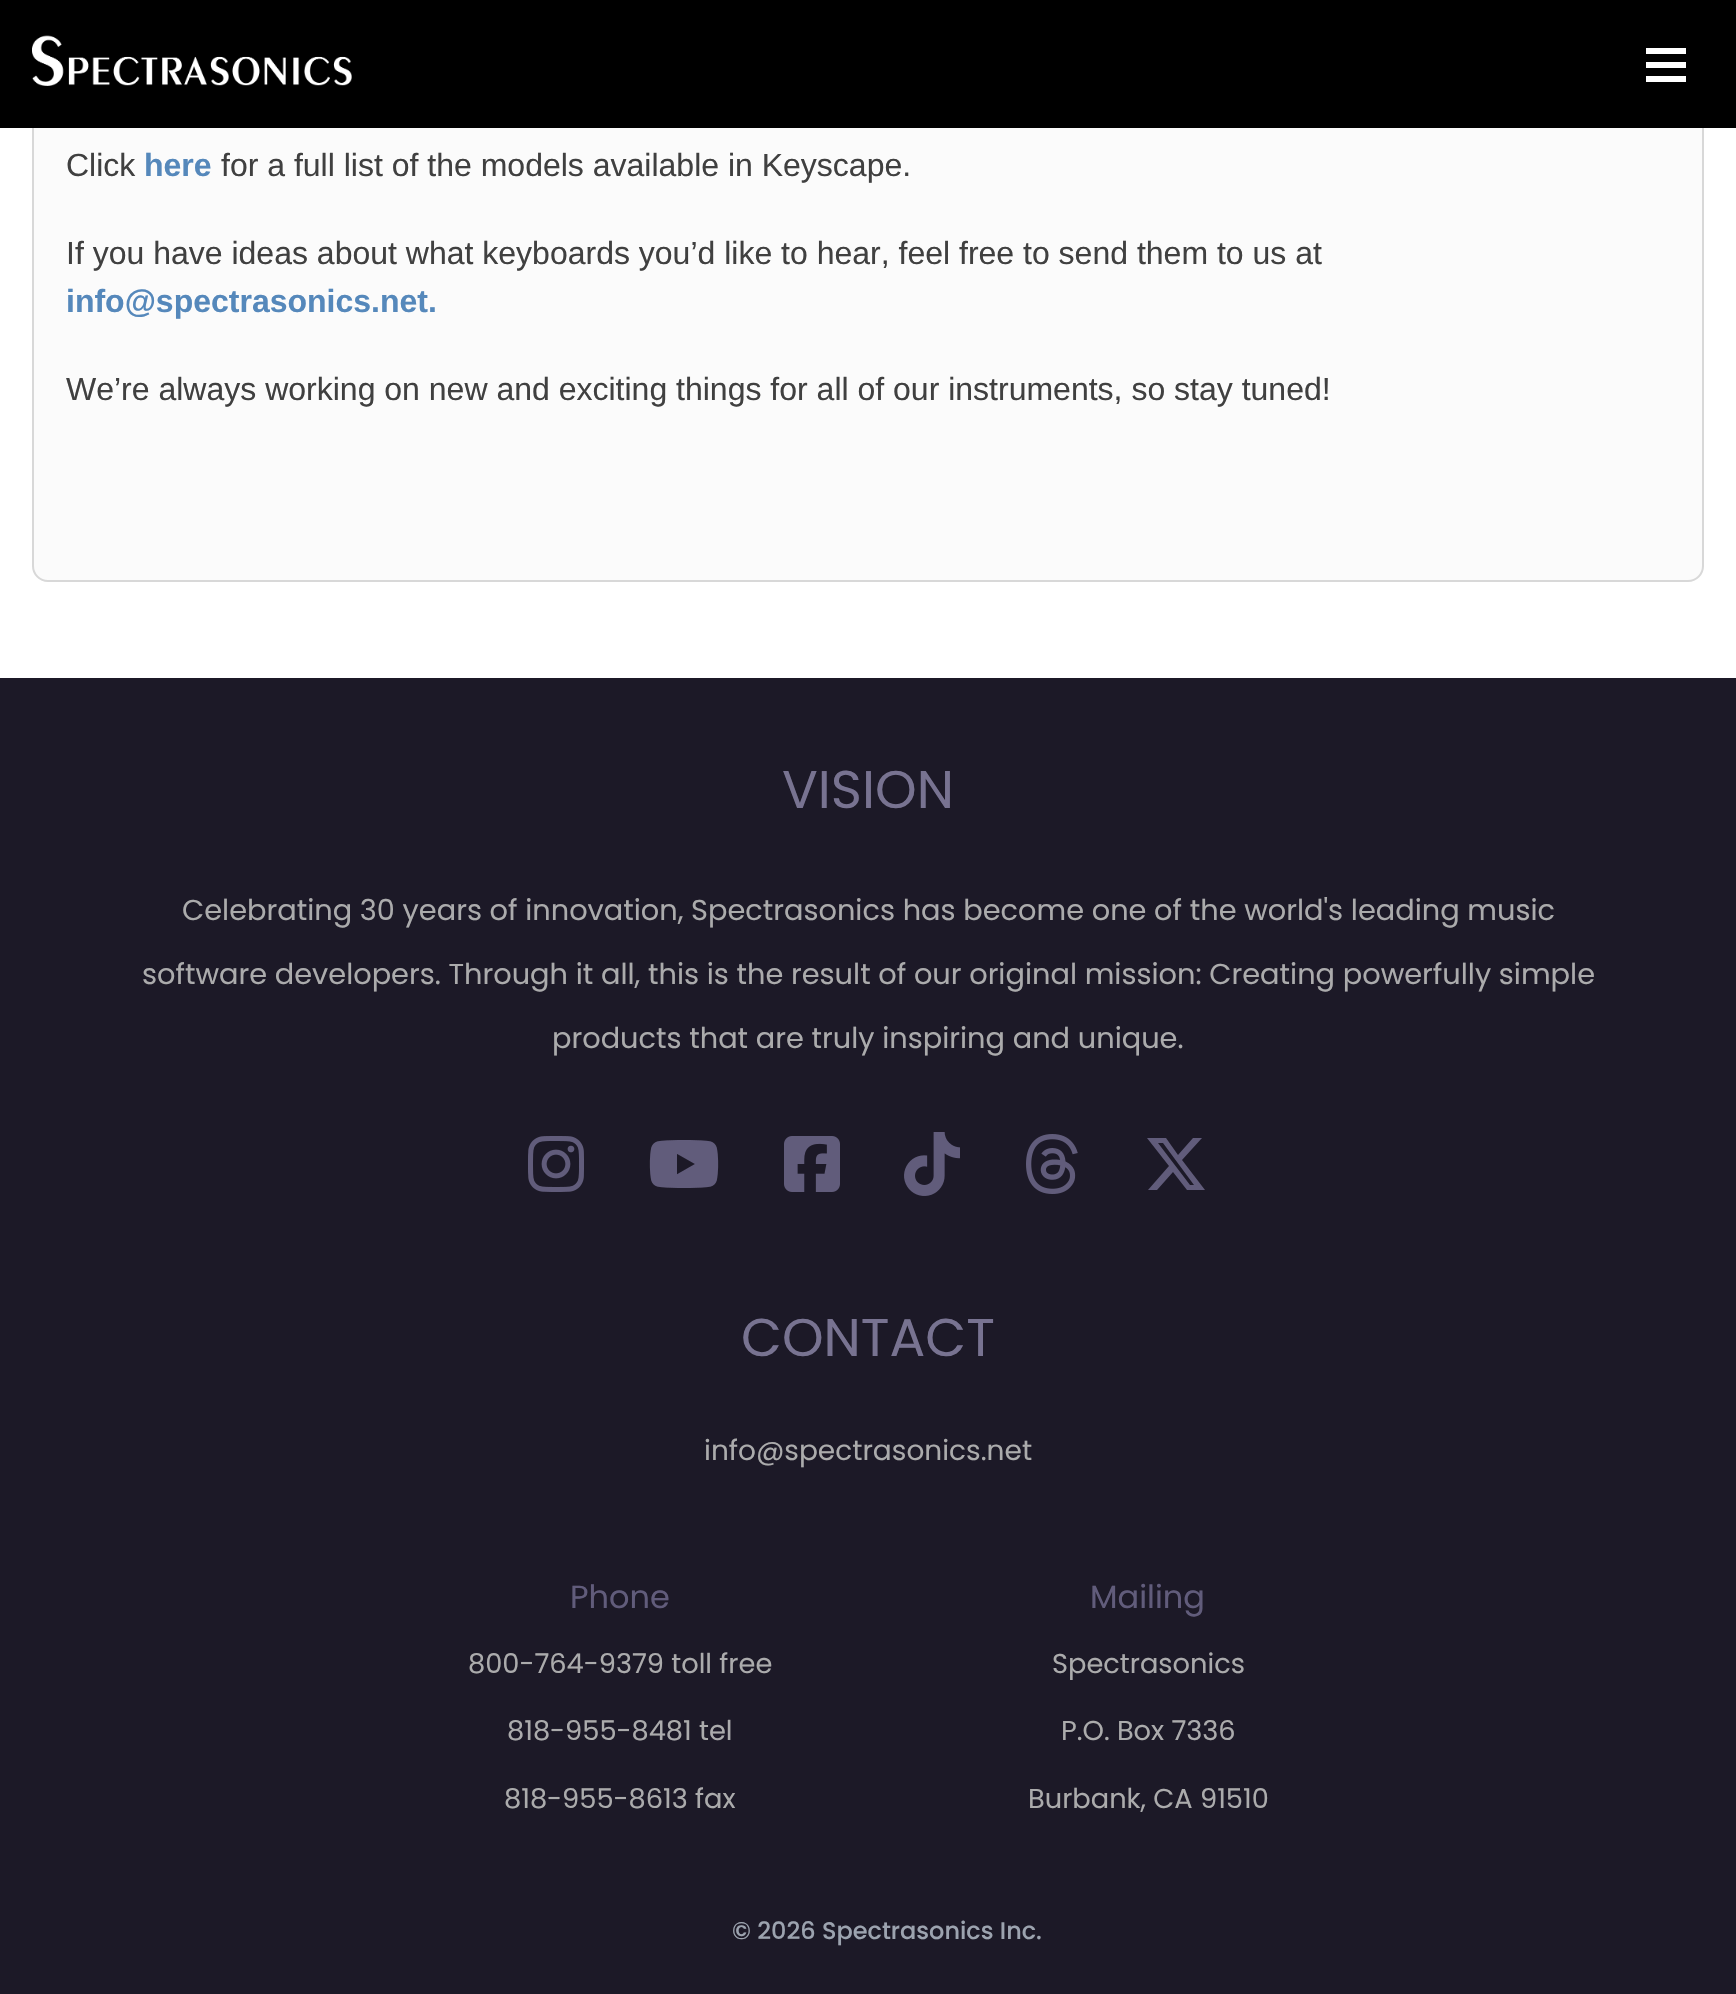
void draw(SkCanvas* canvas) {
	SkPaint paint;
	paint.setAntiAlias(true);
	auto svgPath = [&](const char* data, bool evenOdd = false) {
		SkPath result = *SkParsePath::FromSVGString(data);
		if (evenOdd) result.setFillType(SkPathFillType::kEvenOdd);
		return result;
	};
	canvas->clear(0xffffffff);
	paint.setColor(0xfffbfbfb);
	canvas->drawRoundRect(SkRect::MakeXYWH(33, -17, 1670, 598), 15, 15, paint);
	paint.setStroke(true);
	paint.setStrokeWidth(2);
	paint.setColor(0xffd8d8d8);
	canvas->drawRoundRect(SkRect::MakeXYWH(33, -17, 1670, 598), 15, 15, paint);
	paint.setStroke(false);
	paint.setColor(0xff000000);
	canvas->drawRect(SkRect::MakeXYWH(0, 0, 1736, 128), paint);
	canvas->drawImageRect(SkImages::DeferredFromEncodedData(SkData::MakeFromFileName("img1.png")), SkRect::MakeXYWH(32, 35, 320, 51), SkSamplingOptions());
	paint.setColor(0xffffffff);
	canvas->drawRect(SkRect::MakeXYWH(1646, 62, 40, 6), paint);
	canvas->drawRect(SkRect::MakeXYWH(1646, 48, 40, 6), paint);
	canvas->drawRect(SkRect::MakeXYWH(1646, 76, 40, 6), paint);
	SkFont f1(fontMgr->matchFamilyStyle("Liberation Sans", SkFontStyle::Normal()), 32);
	f1.setSubpixel(true);
	paint.setColor(0xff404040);
	canvas->drawString("Click", 66, 176, f1, paint);
	SkFont f2(fontMgr->matchFamilyStyle("Liberation Sans", SkFontStyle::Bold()), 32);
	f2.setSubpixel(true);
	paint.setColor(0xff5588bb);
	canvas->drawString("here", 144, 176, f2, paint);
	paint.setColor(0xff404040);
	canvas->drawString("for a full list of the models available in Keyscape.", 221, 176, f1, paint);
	canvas->drawString("If you have ideas about what keyboards you’d like to hear, feel free to send them to us at", 66, 264, f1, paint);
	paint.setColor(0xff5588bb);
	canvas->drawString("info@spectrasonics.net.", 66, 312, f2, paint);
	paint.setColor(0xff404040);
	canvas->drawString("We’re always working on new and exciting things for all of our instruments, so stay tuned!", 66, 400, f1, paint);
	paint.setColor(0xff1c1927);
	canvas->drawRect(SkRect::MakeXYWH(0, 678, 1736, 1316), paint);
	SkFont f3(fontMgr->matchFamilyStyle("Poppins", SkFontStyle::Normal()), 53);
	f3.setSubpixel(true);
	paint.setColor(0xff787391);
	canvas->drawString("VISION", 782, 808, f3, paint);
	SkFont f4(fontMgr->matchFamilyStyle("Poppins", SkFontStyle::Normal()), 28.8);
	f4.setSubpixel(true);
	paint.setColor(0xffababac);
	canvas->drawString("Celebrating 30 years of innovation, Spectrasonics has become one of the world's leading music", 182, 920, f4, paint);
	canvas->drawString("software developers. Through it all, this is the result of our original mission: Creating powerfully simple", 142, 984, f4, paint);
	canvas->drawString("products that are truly inspiring and unique.", 552, 1048, f4, paint);
	canvas->drawImageRect(SkImages::DeferredFromEncodedData(SkData::MakeFromFileName("img2.png")), SkRect::MakeXYWH(528, 1136, 56, 56), SkSamplingOptions());
	canvas->drawImageRect(SkImages::DeferredFromEncodedData(SkData::MakeFromFileName("img3.png")), SkRect::MakeXYWH(649, 1140, 70, 48), SkSamplingOptions());
	canvas->drawImageRect(SkImages::DeferredFromEncodedData(SkData::MakeFromFileName("img4.png")), SkRect::MakeXYWH(784, 1136, 56, 56), SkSamplingOptions());
	canvas->drawImageRect(SkImages::DeferredFromEncodedData(SkData::MakeFromFileName("img5.png")), SkRect::MakeXYWH(904, 1132, 56, 64), SkSamplingOptions());
	canvas->drawImageRect(SkImages::DeferredFromEncodedData(SkData::MakeFromFileName("img6.png")), SkRect::MakeXYWH(1026, 1134, 52, 60), SkSamplingOptions());
	paint.setColor(0xff615c7b);
	canvas->drawPath(svgPath("M1193 1138H1202H1193H1202L1182 1160L1205 1190H1187L1173 1172L1157 1190H1148L1169 1166L1147 1138H1166L1178 1155ZM1190 1185H1194H1190H1194L1163 1143H1158Z"), paint);
	paint.setColor(0xff787391);
	canvas->drawString("CONTACT", 741, 1356, f3, paint);
	SkFont f5(fontMgr->matchFamilyStyle("Poppins", SkFontStyle::Normal()), 28);
	f5.setSubpixel(true);
	paint.setColor(0xffababac);
	canvas->drawString("info@spectrasonics.net", 704, 1460, f5, paint);
	SkFont f6(fontMgr->matchFamilyStyle("Poppins", SkFontStyle::Normal()), 32);
	f6.setSubpixel(true);
	paint.setColor(0xff615c7b);
	canvas->drawString("Phone", 570, 1608, f6, paint);
	SkFont f7(fontMgr->matchFamilyStyle("Poppins", SkFontStyle::Normal()), 27.25);
	f7.setSubpixel(true);
	paint.setColor(0xffababac);
	canvas->drawString("800-764-9379 toll free", 468, 1673, f7, paint);
	canvas->drawString("818-955-8481 tel", 507, 1740, f7, paint);
	canvas->drawString("818-955-8613 fax", 504, 1808, f7, paint);
	paint.setColor(0xff615c7b);
	canvas->drawString("Mailing", 1090, 1608, f6, paint);
	paint.setColor(0xffababac);
	canvas->drawString("Spectrasonics", 1052, 1673, f7, paint);
	canvas->drawString("P.O. Box 7336", 1061, 1740, f7, paint);
	canvas->drawString("Burbank, CA 91510", 1028, 1808, f7, paint);
	SkFont f8(fontMgr->matchFamilyStyle("Poppins", SkFontStyle(500, SkFontStyle::kNormal_Width, SkFontStyle::kUpright_Slant)), 24);
	f8.setSubpixel(true);
	paint.setColor(0xff9ca3af);
	canvas->drawString("© 2026 Spectrasonics Inc.", 732, 1939, f8, paint);
}
